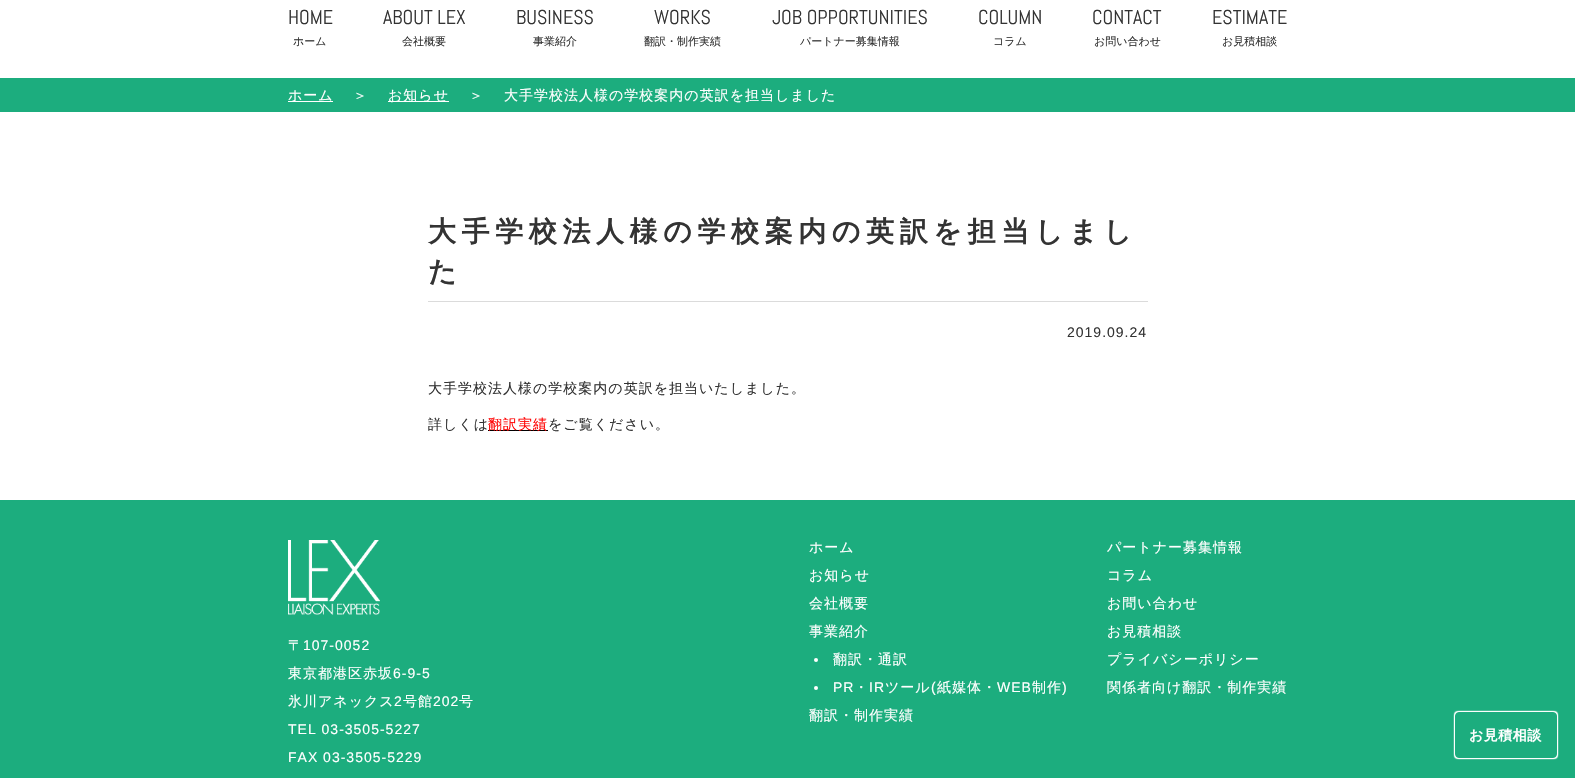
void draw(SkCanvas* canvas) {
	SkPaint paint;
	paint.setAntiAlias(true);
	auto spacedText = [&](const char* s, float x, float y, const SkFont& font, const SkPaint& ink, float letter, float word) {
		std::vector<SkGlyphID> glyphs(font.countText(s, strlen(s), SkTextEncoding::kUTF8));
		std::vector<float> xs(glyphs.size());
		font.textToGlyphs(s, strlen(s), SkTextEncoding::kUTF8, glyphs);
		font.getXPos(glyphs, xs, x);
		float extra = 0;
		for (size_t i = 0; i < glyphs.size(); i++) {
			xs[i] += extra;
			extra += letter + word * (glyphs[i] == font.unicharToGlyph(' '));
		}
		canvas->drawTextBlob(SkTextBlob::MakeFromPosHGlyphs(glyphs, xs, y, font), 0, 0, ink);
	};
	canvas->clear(0xffffffff);
	SkFont f1(fontMgr->matchFamilyStyle("Abel", SkFontStyle::Normal()), 20);
	f1.setSubpixel(true);
	paint.setColor(0xff333333);
	canvas->drawString("HOME", 288, 24, f1, paint);
	SkFont f2(fontMgr->matchFamilyStyle("WenQuanYi Zen Hei", SkFontStyle(500, SkFontStyle::kNormal_Width, SkFontStyle::kUpright_Slant)), 11);
	f2.setSubpixel(true);
	canvas->drawString("ホーム", 293, 45, f2, paint);
	canvas->drawString("ABOUT LEX", 383, 24, f1, paint);
	canvas->drawString("会社概要", 402, 45, f2, paint);
	canvas->drawString("BUSINESS", 516, 24, f1, paint);
	canvas->drawString("事業紹介", 533, 45, f2, paint);
	canvas->drawString("WORKS", 654, 24, f1, paint);
	canvas->drawString("翻訳・制作実績", 644, 45, f2, paint);
	canvas->drawString("JOB OPPORTUNITIES", 772, 24, f1, paint);
	canvas->drawString("パートナー募集情報", 800, 45, f2, paint);
	canvas->drawString("COLUMN", 978, 24, f1, paint);
	canvas->drawString("コラム", 993, 45, f2, paint);
	canvas->drawString("CONTACT", 1092, 24, f1, paint);
	canvas->drawString("お問い合わせ", 1094, 45, f2, paint);
	canvas->drawString("ESTIMATE", 1212, 24, f1, paint);
	canvas->drawString("お見積相談", 1222, 45, f2, paint);
	paint.setColor(0xff1cad7e);
	canvas->drawRect(SkRect::MakeXYWH(0, 78, 1575, 34), paint);
	paint.setColor(0xffffffff);
	canvas->drawRect(SkRect::MakeXYWH(288, 101, 45, 1), paint);
	SkFont f3(fontMgr->matchFamilyStyle("WenQuanYi Zen Hei", SkFontStyle(500, SkFontStyle::kNormal_Width, SkFontStyle::kUpright_Slant)), 14);
	f3.setSubpixel(true);
	spacedText("ホーム", 288, 100, f3, paint, 1, 0);
	spacedText("＞", 353, 100, f3, paint, 1, 0);
	canvas->drawRect(SkRect::MakeXYWH(388, 101, 61, 1), paint);
	spacedText("お知らせ", 388, 100, f3, paint, 1, 0);
	spacedText("＞", 469, 100, f3, paint, 1, 0);
	spacedText("大手学校法人様の学校案内の英訳を担当しました", 504, 100, f3, paint, 1, 0);
	paint.setColor(0xffdbdbdb);
	canvas->drawRect(SkRect::MakeXYWH(428, 301, 720, 1), paint);
	SkFont f4(fontMgr->matchFamilyStyle("WenQuanYi Zen Hei", SkFontStyle::Bold()), 28);
	f4.setSubpixel(true);
	paint.setColor(0xff333333);
	spacedText("大手学校法人様の学校案内の英訳を担当しまし", 428, 241, f4, paint, 5.6, 0);
	spacedText("た", 428, 281, f4, paint, 5.6, 0);
	SkFont f5(fontMgr->matchFamilyStyle("Liberation Sans", SkFontStyle::Normal()), 14);
	f5.setSubpixel(true);
	spacedText("2019.09.24", 1067, 337, f5, paint, 1, 0);
	spacedText("大手学校法人様の学校案内の英訳を担当いたしました。", 428, 393, f3, paint, 1, 0);
	spacedText("詳しくは", 428, 429, f3, paint, 1, 0);
	paint.setColor(0xff000000);
	canvas->drawRect(SkRect::MakeXYWH(488, 430, 60, 1), paint);
	paint.setColor(0xffff0000);
	spacedText("翻訳実績", 488, 429, f3, paint, 1, 0);
	paint.setColor(0xff333333);
	spacedText("をご覧ください。", 548, 429, f3, paint, 1, 0);
	paint.setColor(0xff1cad7e);
	canvas->drawRect(SkRect::MakeXYWH(0, 500, 1575, 278), paint);
	canvas->drawImageRect(SkImages::DeferredFromEncodedData(SkData::MakeFromFileName("img1.png")), SkRect::MakeXYWH(288, 540, 92, 75), SkSamplingOptions());
	paint.setColor(0xffffffff);
	spacedText("〒", 288, 650, f3, paint, 1, 0);
	spacedText("107-0052", 303, 650, f5, paint, 1, 0);
	spacedText("東京都港区赤坂", 288, 678, f3, paint, 1, 0);
	spacedText("6-9-5", 393, 678, f5, paint, 1, 0);
	spacedText("氷川アネックス", 288, 706, f3, paint, 1, 0);
	spacedText("2", 394, 706, f5, paint, 1, 0);
	spacedText("号館", 403, 706, f3, paint, 1, 0);
	spacedText("202", 433, 706, f5, paint, 1, 0);
	spacedText("号", 459, 706, f3, paint, 1, 0);
	spacedText("TEL 03-3505-5227", 288, 734, f5, paint, 1, 0);
	spacedText("FAX 03-3505-5229", 288, 762, f5, paint, 1, 0);
	spacedText("ホーム", 809, 552, f3, paint, 1, 0);
	spacedText("お知らせ", 809, 580, f3, paint, 1, 0);
	spacedText("会社概要", 809, 608, f3, paint, 1, 0);
	spacedText("事業紹介", 809, 636, f3, paint, 1, 0);
	canvas->drawCircle(816, 660, 2, paint);
	spacedText("翻訳・通訳", 833, 664, f3, paint, 1, 0);
	canvas->drawCircle(816, 688, 2, paint);
	spacedText("PR", 833, 692, f5, paint, 1, 0);
	spacedText("・", 854, 692, f3, paint, 1, 0);
	spacedText("IR", 869, 692, f5, paint, 1, 0);
	spacedText("ツール", 885, 692, f3, paint, 1, 0);
	spacedText("(", 931, 692, f5, paint, 1, 0);
	spacedText("紙媒体・", 937, 692, f3, paint, 1, 0);
	spacedText("WEB", 997, 692, f5, paint, 1, 0);
	spacedText("制作", 1032, 692, f3, paint, 1, 0);
	spacedText(")", 1062, 692, f5, paint, 1, 0);
	spacedText("翻訳・制作実績", 809, 720, f3, paint, 1, 0);
	spacedText("パートナー募集情報", 1107, 552, f3, paint, 1, 0);
	spacedText("コラム", 1107, 580, f3, paint, 1, 0);
	spacedText("お問い合わせ", 1107, 608, f3, paint, 1, 0);
	spacedText("お見積相談", 1107, 636, f3, paint, 1, 0);
	spacedText("プライバシーポリシー", 1107, 664, f3, paint, 1, 0);
	spacedText("関係者向け翻訳・制作実績", 1107, 692, f3, paint, 1, 0);
	paint.setMaskFilter(SkMaskFilter::MakeBlur(kNormal_SkBlurStyle, 0.5));
	canvas->drawRoundRect(SkRect::MakeXYWH(1454, 711, 102, 46), 4, 4, paint);
	paint.setMaskFilter(nullptr);
	paint.setMaskFilter(SkMaskFilter::MakeBlur(kNormal_SkBlurStyle, 0.5));
	canvas->drawRoundRect(SkRect::MakeXYWH(1456, 711, 102, 46), 4, 4, paint);
	paint.setMaskFilter(nullptr);
	paint.setMaskFilter(SkMaskFilter::MakeBlur(kNormal_SkBlurStyle, 0.5));
	canvas->drawRoundRect(SkRect::MakeXYWH(1454, 713, 102, 46), 4, 4, paint);
	paint.setMaskFilter(nullptr);
	paint.setMaskFilter(SkMaskFilter::MakeBlur(kNormal_SkBlurStyle, 0.5));
	canvas->drawRoundRect(SkRect::MakeXYWH(1456, 713, 102, 46), 4, 4, paint);
	paint.setMaskFilter(nullptr);
	paint.setColor(0xff1cad7e);
	canvas->drawRoundRect(SkRect::MakeXYWH(1455.5, 712.5, 101, 45), 3.5, 3.5, paint);
	paint.setStroke(true);
	paint.setStrokeWidth(1);
	canvas->drawRoundRect(SkRect::MakeXYWH(1455.5, 712.5, 101, 45), 3.5, 3.5, paint);
	SkFont f6(fontMgr->matchFamilyStyle("WenQuanYi Zen Hei", SkFontStyle::Bold()), 14);
	f6.setSubpixel(true);
	paint.setStroke(false);
	paint.setColor(0xffffffff);
	spacedText("お見積相談", 1469, 740, f6, paint, 0.5, 0);
}
